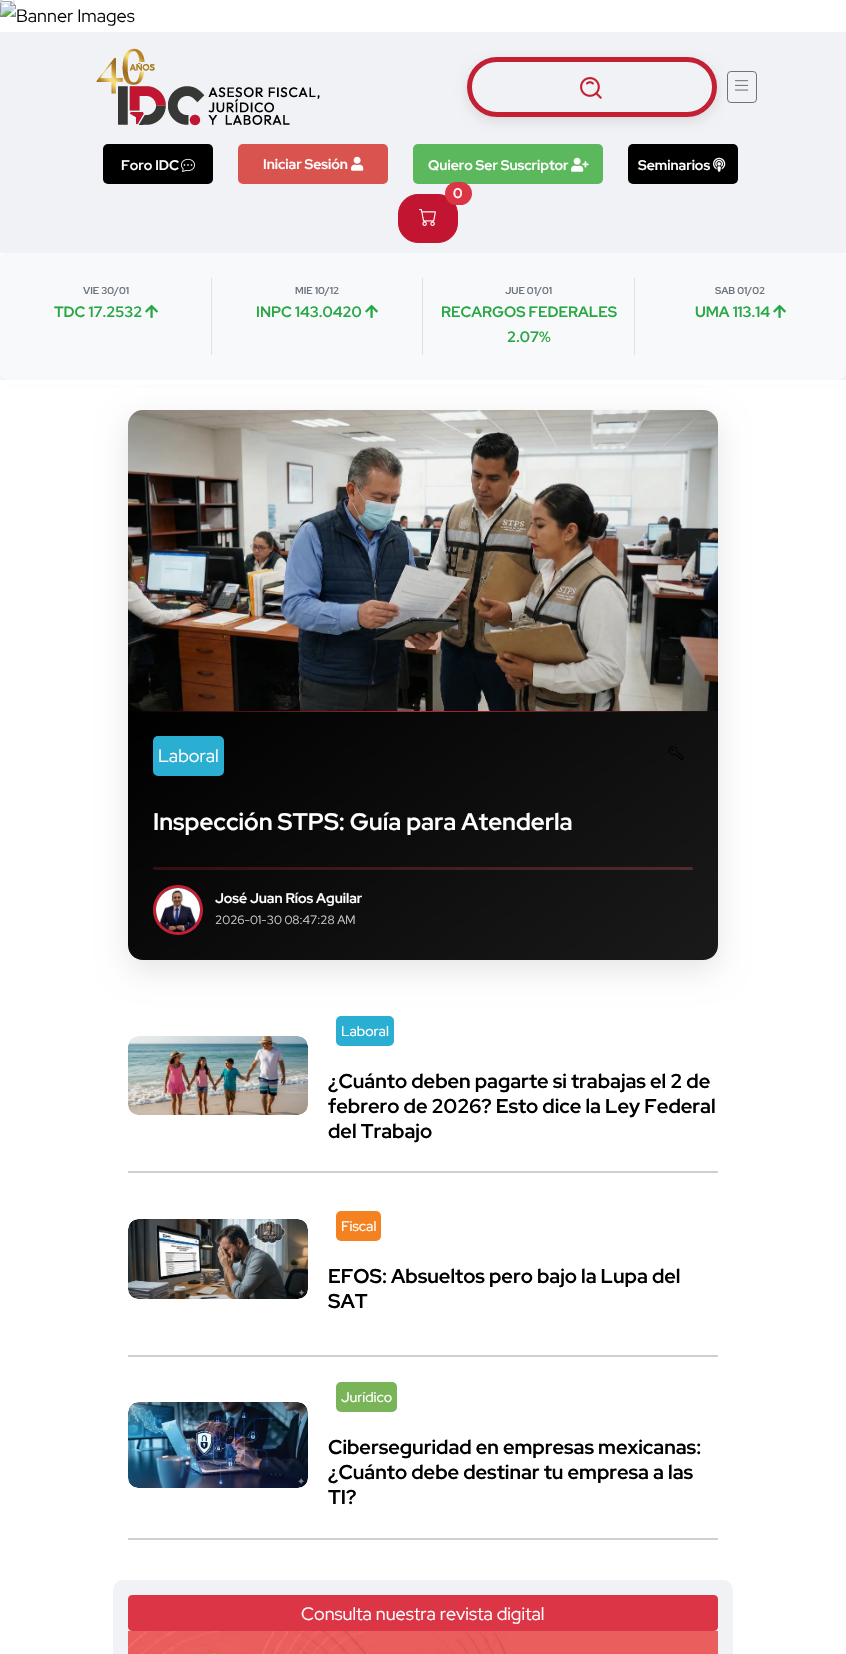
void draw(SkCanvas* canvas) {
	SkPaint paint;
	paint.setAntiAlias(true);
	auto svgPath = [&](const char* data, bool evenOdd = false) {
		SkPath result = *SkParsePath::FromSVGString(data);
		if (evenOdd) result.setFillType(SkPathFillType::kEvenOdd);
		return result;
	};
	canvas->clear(0xffffffff);
	canvas->drawImageRect(SkImages::DeferredFromEncodedData(SkData::MakeFromFileName("img1.png")), SkRect::MakeXYWH(0, 1, 135, 25), SkSamplingOptions());
	paint.setStroke(true);
	paint.setStrokeWidth(2);
	paint.setColor(0x80ced0d4);
	canvas->drawCircle(0, 0, 14, paint);
	paint.setStroke(false);
	paint.setColor(0xffced0d4);
	canvas->drawCircle(0, 0, 3, paint);
	paint.setColor(0x1a000000);
	paint.setMaskFilter(SkMaskFilter::MakeBlur(kNormal_SkBlurStyle, 2.5));
	canvas->drawRoundRect(SkRect::MakeXYWH(0, 255, 846, 127), 8, 8, paint);
	paint.setMaskFilter(nullptr);
	paint.setColor(0xfff0f2f5);
	canvas->drawRect(SkRect::MakeXYWH(0, 32, 846, 221), paint);
	canvas->drawImageRect(SkImages::DeferredFromEncodedData(SkData::MakeFromFileName("img2.png")), SkRect::MakeXYWH(96, 48, 224, 78), SkSamplingOptions());
	paint.setColor(0x1a000000);
	paint.setMaskFilter(SkMaskFilter::MakeBlur(kNormal_SkBlurStyle, 6));
	canvas->drawRoundRect(SkRect::MakeXYWH(467, 61, 250, 60), 30, 30, paint);
	paint.setMaskFilter(nullptr);
	paint.setColor(0xfff0f2f5);
	canvas->drawRoundRect(SkRect::MakeXYWH(469.5, 59.5, 245, 55), 27.5, 27.5, paint);
	paint.setStroke(true);
	paint.setStrokeWidth(5);
	paint.setColor(0xffc32033);
	canvas->drawRoundRect(SkRect::MakeXYWH(469.5, 59.5, 245, 55), 27.5, 27.5, paint);
	canvas->drawImageRect(SkImages::DeferredFromEncodedData(SkData::MakeFromFileName("img3.png")), SkRect::MakeXYWH(580, 77, 22, 22), SkSamplingOptions());
	paint.setStrokeWidth(1);
	paint.setColor(0xff6c757d);
	canvas->drawRoundRect(SkRect::MakeXYWH(727.5, 71.5, 29, 31), 3.5, 3.5, paint);
	canvas->drawImageRect(SkImages::DeferredFromEncodedData(SkData::MakeFromFileName("img4.png")), SkRect::MakeXYWH(735, 80, 14, 11), SkSamplingOptions());
	paint.setStroke(false);
	paint.setColor(0xff000000);
	canvas->drawRoundRect(SkRect::MakeXYWH(103, 144, 110, 40), 5, 5, paint);
	SkFont f1(fontMgr->matchFamilyStyle("Red Hat Display", SkFontStyle::Bold()), 14);
	f1.setSubpixel(true);
	paint.setColor(0xffffffff);
	canvas->drawString("Foro IDC", 121, 170, f1, paint);
	canvas->drawImageRect(SkImages::DeferredFromEncodedData(SkData::MakeFromFileName("img5.png")), SkRect::MakeXYWH(181, 158, 14, 14), SkSamplingOptions());
	paint.setColor(0xffd9534f);
	canvas->drawRoundRect(SkRect::MakeXYWH(238, 144, 150, 40), 5, 5, paint);
	paint.setColor(0xffffffff);
	canvas->drawString("Iniciar Sesión", 263, 169, f1, paint);
	canvas->drawImageRect(SkImages::DeferredFromEncodedData(SkData::MakeFromFileName("img6.png")), SkRect::MakeXYWH(351, 156, 13, 15), SkSamplingOptions());
	paint.setColor(0xff5cb85c);
	canvas->drawRoundRect(SkRect::MakeXYWH(413, 144, 190, 40), 5, 5, paint);
	paint.setColor(0xffffffff);
	canvas->drawString("Quiero Ser Suscriptor", 428, 170, f1, paint);
	canvas->drawImageRect(SkImages::DeferredFromEncodedData(SkData::MakeFromFileName("img7.png")), SkRect::MakeXYWH(571, 157, 18, 15), SkSamplingOptions());
	paint.setColor(0xff000000);
	canvas->drawRoundRect(SkRect::MakeXYWH(628, 144, 110, 40), 5, 5, paint);
	paint.setColor(0xffffffff);
	canvas->drawString("Seminarios", 638, 170, f1, paint);
	canvas->drawImageRect(SkImages::DeferredFromEncodedData(SkData::MakeFromFileName("img8.png")), SkRect::MakeXYWH(713, 157, 13, 15), SkSamplingOptions());
	paint.setColor(0xffc21532);
	canvas->drawRoundRect(SkRect::MakeXYWH(398.5, 194.5, 59, 48), 19.5, 19.5, paint);
	paint.setStroke(true);
	canvas->drawRoundRect(SkRect::MakeXYWH(398.5, 194.5, 59, 48), 19.5, 19.5, paint);
	paint.setStroke(false);
	paint.setColor(0xffdc3545);
	canvas->drawRoundRect(SkRect::MakeXYWH(445, 182, 27, 23), 11.5, 11.5, paint);
	paint.setColor(0xffffffff);
	canvas->drawString("0", 453, 198, f1, paint);
	canvas->drawImageRect(SkImages::DeferredFromEncodedData(SkData::MakeFromFileName("img9.png")), SkRect::MakeXYWH(419, 209, 17, 17), SkSamplingOptions());
	paint.setColor(0xfff8f9fa);
	canvas->drawRoundRect(SkRect::MakeXYWH(0, 253, 846, 127), 8, 8, paint);
	SkFont f2(fontMgr->matchFamilyStyle("Red Hat Display", SkFontStyle::Bold()), 10);
	f2.setSubpixel(true);
	paint.setColor(0xff6c757d);
	canvas->drawString("VIE 30/01", 83, 294, f2, paint);
	paint.setColor(0xffdee2e6);
	canvas->drawRect(SkRect::MakeXYWH(211, 278, 1, 77), paint);
	SkFont f3(fontMgr->matchFamilyStyle("Red Hat Display", SkFontStyle::Bold()), 15);
	f3.setSubpixel(true);
	paint.setColor(0xff28a745);
	canvas->drawString("TDC 17.2532", 54, 317, f3, paint);
	canvas->drawImageRect(SkImages::DeferredFromEncodedData(SkData::MakeFromFileName("img10.png")), SkRect::MakeXYWH(145, 304, 13, 14), SkSamplingOptions());
	paint.setColor(0xff6c757d);
	canvas->drawString("MIE 10/12", 295, 294, f2, paint);
	paint.setColor(0xffdee2e6);
	canvas->drawRect(SkRect::MakeXYWH(422, 278, 1, 77), paint);
	paint.setColor(0xff28a745);
	canvas->drawString("INPC 143.0420", 256, 317, f3, paint);
	canvas->drawImageRect(SkImages::DeferredFromEncodedData(SkData::MakeFromFileName("img10.png")), SkRect::MakeXYWH(365, 304, 13, 14), SkSamplingOptions());
	paint.setColor(0xff6c757d);
	canvas->drawString("JUE 01/01", 505, 294, f2, paint);
	paint.setColor(0xffdee2e6);
	canvas->drawRect(SkRect::MakeXYWH(634, 278, 1, 77), paint);
	paint.setColor(0xff28a745);
	canvas->drawString("RECARGOS FEDERALES", 441, 317, f3, paint);
	canvas->drawString("2.07%", 507, 342, f3, paint);
	paint.setColor(0xff6c757d);
	canvas->drawString("SAB 01/02", 715, 294, f2, paint);
	paint.setColor(0xff28a745);
	canvas->drawString("UMA 113.14", 695, 317, f3, paint);
	canvas->drawImageRect(SkImages::DeferredFromEncodedData(SkData::MakeFromFileName("img10.png")), SkRect::MakeXYWH(773, 304, 13, 14), SkSamplingOptions());
	paint.setColor(0xffffffff);
	canvas->drawRect(SkRect::MakeXYWH(0, 380, 846, 5), paint);
	paint.setColor(0x1a000000);
	paint.setMaskFilter(SkMaskFilter::MakeBlur(kNormal_SkBlurStyle, 15));
	canvas->drawRoundRect(SkRect::MakeXYWH(128, 420, 590, 550), 15, 15, paint);
	paint.setMaskFilter(nullptr);
	canvas->drawImageRect(SkImages::DeferredFromEncodedData(SkData::MakeFromFileName("img11.png")), SkRect::MakeXYWH(128, 410, 590, 301), SkSamplingOptions());
	{
		const SkColor colors[] = {0x00000000, 0x1a000000};
		const float stops[] = {0, 1};
		const SkPoint ends[] = {{200, 338}, {646, 783}};
		paint.setShader(SkGradientShader::MakeLinear(ends, colors, stops, 2, SkTileMode::kClamp));
		paint.setAlpha(255);
	}
	canvas->drawPath(svgPath("M143 410H703C711.5 410 718 416.5 718 425V711H128V425C128 416.5 134.5 410 143 410Z"), paint);
	{
		const SkColor colors[] = {0xff000000, 0xff1a1a1a};
		const float stops[] = {0, 1};
		const SkPoint ends[] = {{267, 613}, {579, 1058}};
		paint.setShader(SkGradientShader::MakeLinear(ends, colors, stops, 2, SkTileMode::kClamp));
		paint.setAlpha(255);
	}
	canvas->drawPath(svgPath("M128 711H718V945C718 953.5 711.5 960 703 960H143C134.5 960 128 953.5 128 945Z"), paint);
	{
		const SkColor colors[] = {0x00c32033, 0xffc32033, 0x00c32033};
		const float stops[] = {0, 0.5, 1};
		const SkPoint ends[] = {{128, 712}, {718, 712}};
		paint.setShader(SkGradientShader::MakeLinear(ends, colors, stops, 3, SkTileMode::kClamp));
		paint.setAlpha(255);
	}
	canvas->drawRect(SkRect::MakeXYWH(128, 711, 590, 1), paint);
	paint.setShader(nullptr);
	paint.setColor(0xff2aafd3);
	canvas->drawRoundRect(SkRect::MakeXYWH(153, 736, 71, 40), 5, 5, paint);
	SkFont f4(fontMgr->matchFamilyStyle("Red Hat Display", SkFontStyle::Normal()), 18);
	f4.setSubpixel(true);
	paint.setColor(0xffffffff);
	canvas->drawString("Laboral", 158, 762, f4, paint);
	canvas->drawImageRect(SkImages::DeferredFromEncodedData(SkData::MakeFromFileName("img12.png")), SkRect::MakeXYWH(668, 746, 16, 14), SkSamplingOptions());
	SkFont f5(fontMgr->matchFamilyStyle("Red Hat Display", SkFontStyle::Bold()), 24);
	f5.setSubpixel(true);
	canvas->drawString("Inspección STPS: Guía para Atenderla", 153, 830, f5, paint);
	{
		const SkColor colors[] = {0x40c32033, 0x40ff6b6b};
		const float stops[] = {0, 1};
		const SkPoint ends[] = {{153, 869}, {693, 869}};
		paint.setShader(SkGradientShader::MakeLinear(ends, colors, stops, 2, SkTileMode::kClamp));
		paint.setAlpha(255);
	}
	canvas->drawRoundRect(SkRect::MakeXYWH(153, 867, 540, 3), 1.5, 1.5, paint);
	paint.setStroke(true);
	paint.setStrokeWidth(3);
	paint.setShader(nullptr);
	paint.setColor(0xffc32033);
	canvas->drawCircle(178, 910, 23.5, paint);
	canvas->drawImageRect(SkImages::DeferredFromEncodedData(SkData::MakeFromFileName("img13.png")), SkRect::MakeXYWH(156, 888, 44, 44), SkSamplingOptions());
	paint.setStroke(false);
	paint.setColor(0xffffffff);
	canvas->drawString("José Juan Ríos Aguilar", 215, 903, f1, paint);
	SkFont f6(fontMgr->matchFamilyStyle("Red Hat Display", SkFontStyle::Normal()), 12);
	f6.setSubpixel(true);
	paint.setColor(0xffcccccc);
	canvas->drawString("2026-01-30 08:47:28 AM", 215, 924, f6, paint);
	paint.setColor(0xffced0d4);
	canvas->drawRect(SkRect::MakeXYWH(128, 1171, 590, 2), paint);
	canvas->drawImageRect(SkImages::DeferredFromEncodedData(SkData::MakeFromFileName("img14.png")), SkRect::MakeXYWH(128, 1036, 180, 79), SkSamplingOptions());
	paint.setColor(0xff2aafd3);
	canvas->drawRoundRect(SkRect::MakeXYWH(336, 1016, 58, 30), 5, 5, paint);
	SkFont f7(fontMgr->matchFamilyStyle("Red Hat Display", SkFontStyle(500, SkFontStyle::kNormal_Width, SkFontStyle::kUpright_Slant)), 14);
	f7.setSubpixel(true);
	paint.setColor(0xffffffff);
	canvas->drawString("Laboral", 341, 1036, f7, paint);
	SkFont f8(fontMgr->matchFamilyStyle("Red Hat Display", SkFontStyle::Bold()), 20);
	f8.setSubpixel(true);
	paint.setColor(0xff000000);
	canvas->drawString("¿Cuánto deben pagarte si trabajas el 2 de", 328, 1088, f8, paint);
	canvas->drawString("febrero de 2026? Esto dice la Ley Federal", 328, 1113, f8, paint);
	canvas->drawString("del Trabajo", 328, 1138, f8, paint);
	paint.setColor(0xffced0d4);
	canvas->drawRect(SkRect::MakeXYWH(128, 1355, 590, 2), paint);
	canvas->drawImageRect(SkImages::DeferredFromEncodedData(SkData::MakeFromFileName("img15.png")), SkRect::MakeXYWH(128, 1219, 180, 80), SkSamplingOptions());
	paint.setColor(0xfff48220);
	canvas->drawRoundRect(SkRect::MakeXYWH(336, 1211, 45, 30), 5, 5, paint);
	paint.setColor(0xffffffff);
	canvas->drawString("Fiscal", 341, 1231, f7, paint);
	paint.setColor(0xff000000);
	canvas->drawString("EFOS: Absueltos pero bajo la Lupa del", 328, 1283, f8, paint);
	canvas->drawString("SAT", 328, 1308, f8, paint);
	paint.setColor(0xffced0d4);
	canvas->drawRect(SkRect::MakeXYWH(128, 1538, 590, 2), paint);
	canvas->drawImageRect(SkImages::DeferredFromEncodedData(SkData::MakeFromFileName("img16.png")), SkRect::MakeXYWH(128, 1402, 180, 86), SkSamplingOptions());
	paint.setColor(0xff7ab459);
	canvas->drawRoundRect(SkRect::MakeXYWH(336, 1382, 61, 30), 5, 5, paint);
	paint.setColor(0xffffffff);
	canvas->drawString("Jurídico", 341, 1402, f7, paint);
	paint.setColor(0xff000000);
	canvas->drawString("Ciberseguridad en empresas mexicanas:", 328, 1454, f8, paint);
	canvas->drawString("¿Cuánto debe destinar tu empresa a las", 328, 1479, f8, paint);
	canvas->drawString("TI?", 328, 1504, f8, paint);
	paint.setColor(0xfff0f2f5);
	canvas->drawRoundRect(SkRect::MakeXYWH(113, 1580, 620, 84), 10, 10, paint);
	paint.setColor(0xffdc3545);
	canvas->drawRoundRect(SkRect::MakeXYWH(128.5, 1595.5, 589, 35), 3.5, 3.5, paint);
	paint.setStroke(true);
	paint.setStrokeWidth(1);
	canvas->drawRoundRect(SkRect::MakeXYWH(128.5, 1595.5, 589, 35), 3.5, 3.5, paint);
	paint.setStroke(false);
	paint.setColor(0xffffffff);
	canvas->drawString("Consulta nuestra revista digital", 301, 1620, f4, paint);
	canvas->drawImageRect(SkImages::DeferredFromEncodedData(SkData::MakeFromFileName("img17.png")), SkRect::MakeXYWH(128, 1631, 590, 23), SkSamplingOptions());
}
